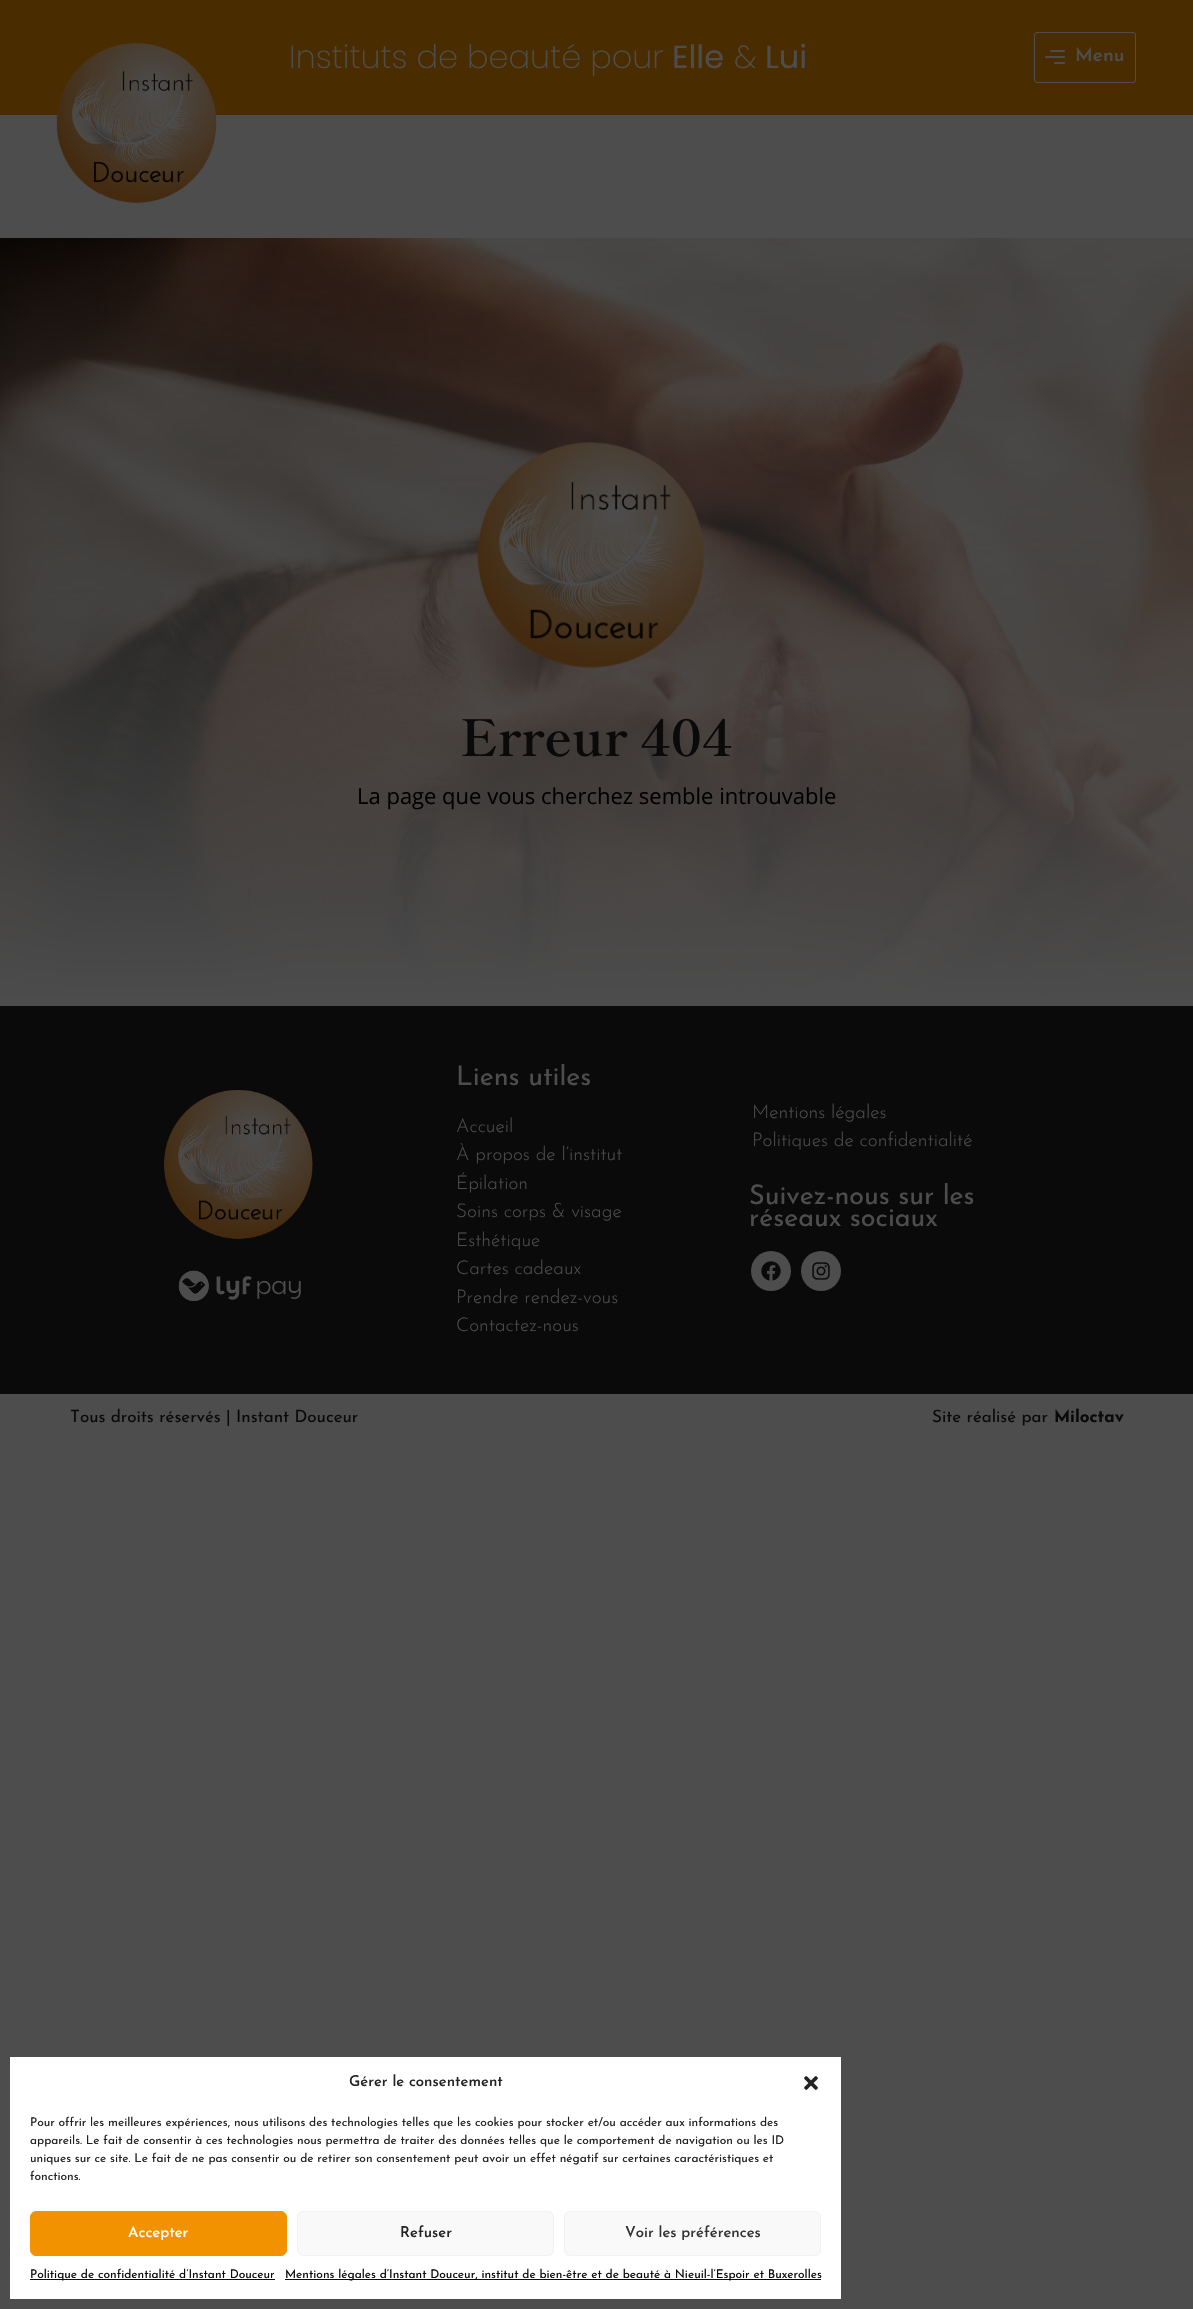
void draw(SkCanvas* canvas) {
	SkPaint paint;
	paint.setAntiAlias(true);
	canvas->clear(0xff4d4d4d);
	paint.setColor(0xff492c00);
	canvas->drawRect(SkRect::MakeXYWH(0, 0, 1193, 115), paint);
	canvas->drawImageRect(SkImages::DeferredFromEncodedData(SkData::MakeFromFileName("img1.png")), SkRect::MakeXYWH(56, 43, 161, 160), SkSamplingOptions());
	SkFont f1(fontMgr->matchFamilyStyle("Poppins", SkFontStyle(200, SkFontStyle::kNormal_Width, SkFontStyle::kUpright_Slant)), 32);
	f1.setSubpixel(true);
	paint.setColor(0xff4d4d4d);
	canvas->drawString("Instituts de beauté pour", 289, 68, f1, paint);
	SkFont f2(fontMgr->matchFamilyStyle("Poppins", SkFontStyle::Normal()), 32);
	f2.setSubpixel(true);
	canvas->drawString("Elle", 672, 68, f2, paint);
	canvas->drawString("&", 734, 68, f1, paint);
	canvas->drawString("Lui", 765, 68, f2, paint);
	paint.setStroke(true);
	paint.setStrokeWidth(1);
	canvas->drawRoundRect(SkRect::MakeXYWH(1034.5, 32.5, 101, 50), 2.5, 2.5, paint);
	canvas->drawImageRect(SkImages::DeferredFromEncodedData(SkData::MakeFromFileName("img2.png")), SkRect::MakeXYWH(1045, 50, 20, 14), SkSamplingOptions());
	SkFont f3(fontMgr->matchFamilyStyle("Josefin Sans", SkFontStyle(600, SkFontStyle::kNormal_Width, SkFontStyle::kUpright_Slant)), 19);
	f3.setSubpixel(true);
	paint.setStroke(false);
	canvas->drawString("Menu", 1075, 61, f3, paint);
	canvas->drawImageRect(SkImages::DeferredFromEncodedData(SkData::MakeFromFileName("img3.png")), SkRect::MakeXYWH(0, 238, 1193, 768), SkSamplingOptions());
	canvas->drawImageRect(SkImages::DeferredFromEncodedData(SkData::MakeFromFileName("img4.png")), SkRect::MakeXYWH(477, 442, 228, 226), SkSamplingOptions());
	SkFont f4(fontMgr->matchFamilyStyle("Shippori Mincho", SkFontStyle::Bold()), 50);
	f4.setSubpixel(true);
	paint.setColor(0xff0a0a0a);
	canvas->drawString("Erreur 404", 460, 756, f4, paint);
	SkFont f5(fontMgr->matchFamilyStyle("Open Sans", SkFontStyle::Normal()), 22);
	f5.setSubpixel(true);
	paint.setColor(0xff000000);
	canvas->drawString("La page que vous cherchez semble introuvable", 357, 804, f5, paint);
	paint.setColor(0xff0a0a0a);
	canvas->drawRect(SkRect::MakeXYWH(0, 1006, 1193, 388), paint);
	canvas->drawImageRect(SkImages::DeferredFromEncodedData(SkData::MakeFromFileName("img5.png")), SkRect::MakeXYWH(164, 1090, 149, 149), SkSamplingOptions());
	canvas->drawImageRect(SkImages::DeferredFromEncodedData(SkData::MakeFromFileName("img6.png")), SkRect::MakeXYWH(178, 1270, 123, 31), SkSamplingOptions());
	SkFont f6(fontMgr->matchFamilyStyle("Josefin Sans", SkFontStyle::Normal()), 27);
	f6.setSubpixel(true);
	paint.setColor(0xff4d4d4d);
	canvas->drawString("Liens utiles", 456, 1085, f6, paint);
	SkFont f7(fontMgr->matchFamilyStyle("Josefin Sans", SkFontStyle(300, SkFontStyle::kNormal_Width, SkFontStyle::kUpright_Slant)), 19);
	f7.setSubpixel(true);
	canvas->drawString("Accueil", 456, 1132, f7, paint);
	canvas->drawString("À propos de l’institut", 456, 1160, f7, paint);
	canvas->drawString("Épilation", 456, 1189, f7, paint);
	canvas->drawString("Soins corps & visage", 456, 1217, f7, paint);
	canvas->drawString("Esthétique", 456, 1246, f7, paint);
	canvas->drawString("Cartes cadeaux", 456, 1274, f7, paint);
	canvas->drawString("Prendre rendez-vous", 456, 1303, f7, paint);
	canvas->drawString("Contactez-nous", 456, 1331, f7, paint);
	canvas->drawString("Mentions légales", 752, 1118, f7, paint);
	canvas->drawString("Politiques de confidentialité", 752, 1146, f7, paint);
	canvas->drawString("Suivez-nous sur les", 749, 1204, f6, paint);
	canvas->drawString("réseaux sociaux", 749, 1226, f6, paint);
	canvas->drawCircle(771, 1271, 20, paint);
	canvas->drawImageRect(SkImages::DeferredFromEncodedData(SkData::MakeFromFileName("img7.png")), SkRect::MakeXYWH(761, 1261, 20, 20), SkSamplingOptions());
	canvas->drawCircle(821, 1271, 20, paint);
	canvas->drawImageRect(SkImages::DeferredFromEncodedData(SkData::MakeFromFileName("img8.png")), SkRect::MakeXYWH(812, 1262, 18, 18), SkSamplingOptions());
	SkFont f8(fontMgr->matchFamilyStyle("Josefin Sans", SkFontStyle::Normal()), 17);
	f8.setSubpixel(true);
	paint.setColor(0xff0a0a0a);
	canvas->drawString("Tous droits réservés | Instant Douceur", 70, 1422, f8, paint);
	canvas->drawString("Site réalisé par", 932, 1422, f8, paint);
	SkFont f9(fontMgr->matchFamilyStyle("Josefin Sans", SkFontStyle::Bold()), 17);
	f9.setSubpixel(true);
	canvas->drawString("Miloctav", 1054, 1422, f9, paint);
	paint.setColor(0xffffffff);
	canvas->drawRect(SkRect::MakeXYWH(10, 2057, 831, 242), paint);
	SkFont f10(fontMgr->matchFamilyStyle("Josefin Sans", SkFontStyle(500, SkFontStyle::kNormal_Width, SkFontStyle::kUpright_Slant)), 15);
	f10.setSubpixel(true);
	paint.setColor(0xff222222);
	canvas->drawString("Gérer le consentement", 349, 2086, f10, paint);
	canvas->drawImageRect(SkImages::DeferredFromEncodedData(SkData::MakeFromFileName("img9.png")), SkRect::MakeXYWH(804, 2076, 14, 14), SkSamplingOptions());
	SkFont f11(fontMgr->matchFamilyStyle("Josefin Sans", SkFontStyle::Normal()), 12);
	f11.setSubpixel(true);
	canvas->drawString("Pour offrir les meilleures expériences, nous utilisons des technologies telles que les cookies pour stocker et/ou accéder aux informations des", 30, 2126, f11, paint);
	canvas->drawString("appareils. Le fait de consentir à ces technologies nous permettra de traiter des données telles que le comportement de navigation ou les ID", 30, 2144, f11, paint);
	canvas->drawString("uniques sur ce site. Le fait de ne pas consentir ou de retirer son consentement peut avoir un effet négatif sur certaines caractéristiques et", 30, 2162, f11, paint);
	canvas->drawString("fonctions.", 30, 2180, f11, paint);
	paint.setColor(0xfff39200);
	canvas->drawRoundRect(SkRect::MakeXYWH(30.5, 2211.5, 256, 44), 5.5, 5.5, paint);
	paint.setStroke(true);
	canvas->drawRoundRect(SkRect::MakeXYWH(30.5, 2211.5, 256, 44), 5.5, 5.5, paint);
	paint.setStroke(false);
	paint.setColor(0xffffffff);
	canvas->drawString("Accepter", 128, 2237, f10, paint);
	paint.setColor(0xfff9f9f9);
	canvas->drawRoundRect(SkRect::MakeXYWH(297.5, 2211.5, 256, 44), 5.5, 5.5, paint);
	paint.setStroke(true);
	paint.setColor(0xfff2f2f2);
	canvas->drawRoundRect(SkRect::MakeXYWH(297.5, 2211.5, 256, 44), 5.5, 5.5, paint);
	paint.setStroke(false);
	paint.setColor(0xff222222);
	canvas->drawString("Refuser", 400, 2237, f10, paint);
	paint.setColor(0xfff9f9f9);
	canvas->drawRoundRect(SkRect::MakeXYWH(564.5, 2211.5, 256, 44), 5.5, 5.5, paint);
	paint.setStroke(true);
	paint.setColor(0xfff2f2f2);
	canvas->drawRoundRect(SkRect::MakeXYWH(564.5, 2211.5, 256, 44), 5.5, 5.5, paint);
	paint.setStroke(false);
	paint.setColor(0xff333333);
	canvas->drawString("Voir les préférences", 625, 2237, f10, paint);
	paint.setColor(0xff0d0e0e);
	canvas->drawRect(SkRect::MakeXYWH(30, 2279, 245, 1), paint);
	paint.setColor(0xff0a0a0a);
	canvas->drawString("Politique de confidentialité d’Instant Douceur", 30, 2278, f11, paint);
	paint.setColor(0xff0d0e0e);
	canvas->drawRect(SkRect::MakeXYWH(285, 2279, 536, 1), paint);
	paint.setColor(0xff0a0a0a);
	canvas->drawString("Mentions légales d’Instant Douceur, institut de bien-être et de beauté à Nieuil-l’Espoir et Buxerolles", 285, 2278, f11, paint);
}
